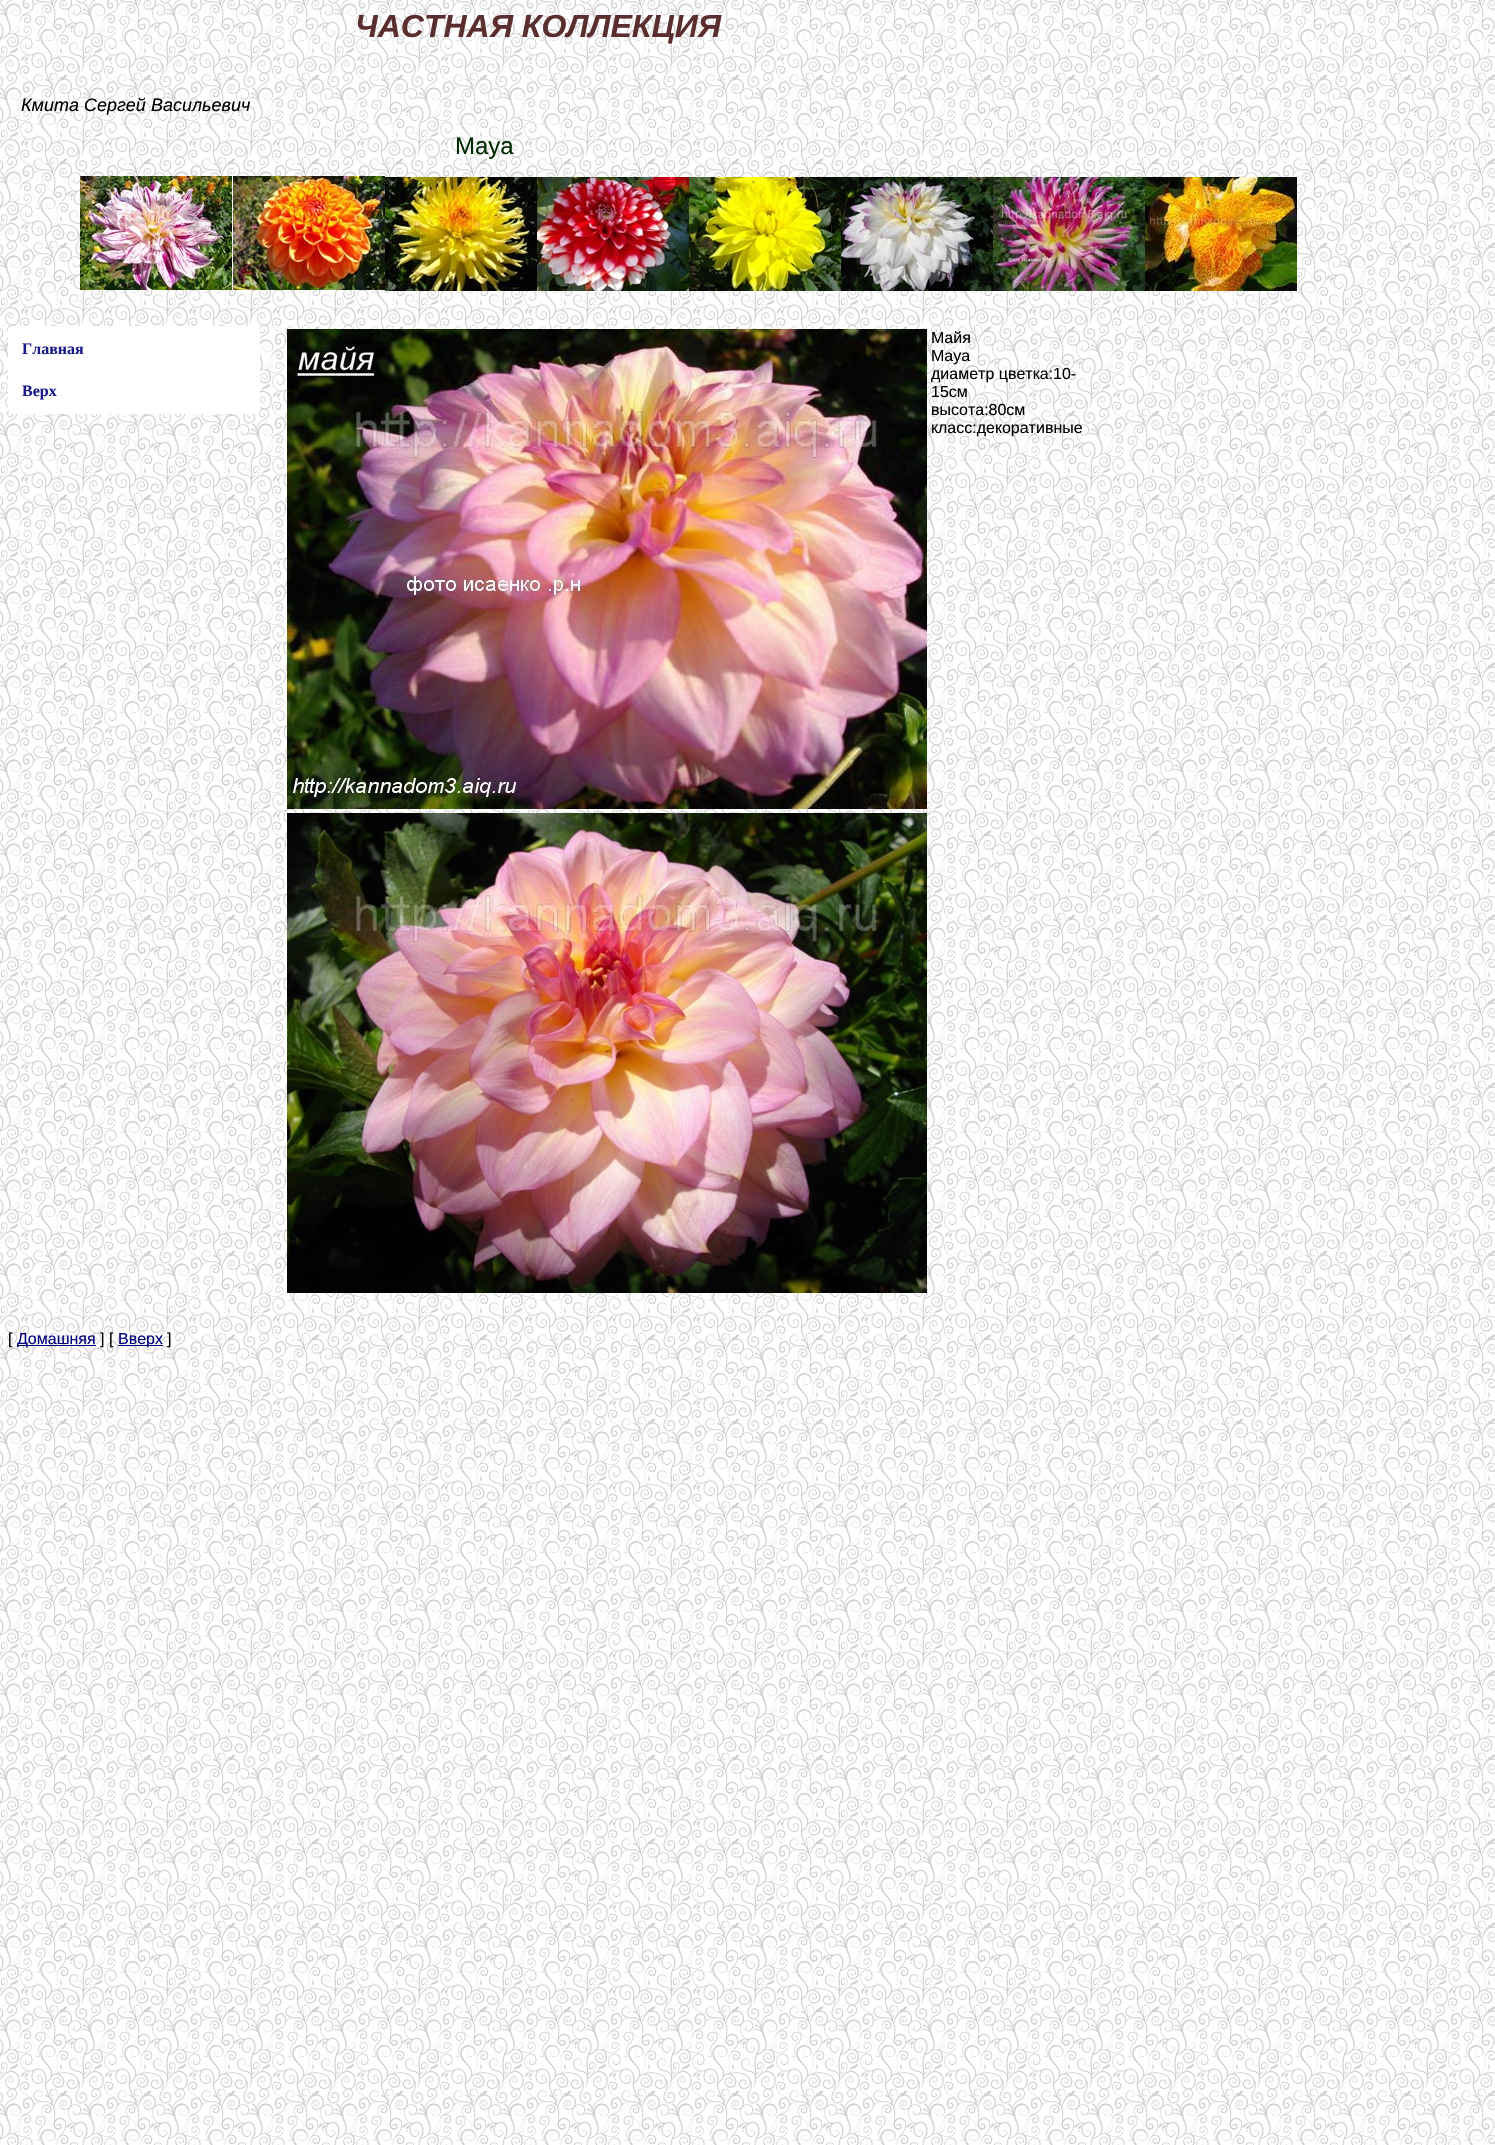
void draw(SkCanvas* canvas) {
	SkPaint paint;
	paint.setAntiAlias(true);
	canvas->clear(0xffffffff);
	canvas->drawImageRect(SkImages::DeferredFromEncodedData(SkData::MakeFromFileName("img1.png")), SkRect::MakeXYWH(0, 0, 1495, 2145), SkSamplingOptions());
	SkFont f1(fontMgr->matchFamilyStyle("Liberation Sans", SkFontStyle::BoldItalic()), 32);
	f1.setSubpixel(true);
	paint.setColor(0xff5a2e2e);
	canvas->drawString("ЧАСТНАЯ КОЛЛЕКЦИЯ", 355, 37, f1, paint);
	SkFont f2(fontMgr->matchFamilyStyle("Liberation Sans", SkFontStyle::Italic()), 18);
	f2.setSubpixel(true);
	paint.setColor(0xff000000);
	canvas->drawString("Кмита Сергей Васильевич", 21, 111, f2, paint);
	SkFont f3(fontMgr->matchFamilyStyle("Liberation Sans", SkFontStyle::Normal()), 24);
	f3.setSubpixel(true);
	paint.setColor(0xff002d00);
	canvas->drawString("Maya", 455, 154, f3, paint);
	canvas->drawImageRect(SkImages::DeferredFromEncodedData(SkData::MakeFromFileName("img2.png")), SkRect::MakeXYWH(80, 176, 152, 114), SkSamplingOptions());
	canvas->drawImageRect(SkImages::DeferredFromEncodedData(SkData::MakeFromFileName("img3.png")), SkRect::MakeXYWH(233, 176, 152, 114), SkSamplingOptions());
	canvas->drawImageRect(SkImages::DeferredFromEncodedData(SkData::MakeFromFileName("img4.png")), SkRect::MakeXYWH(385, 177, 152, 114), SkSamplingOptions());
	canvas->drawImageRect(SkImages::DeferredFromEncodedData(SkData::MakeFromFileName("img5.png")), SkRect::MakeXYWH(537, 177, 152, 114), SkSamplingOptions());
	canvas->drawImageRect(SkImages::DeferredFromEncodedData(SkData::MakeFromFileName("img6.png")), SkRect::MakeXYWH(689, 177, 152, 114), SkSamplingOptions());
	canvas->drawImageRect(SkImages::DeferredFromEncodedData(SkData::MakeFromFileName("img7.png")), SkRect::MakeXYWH(841, 177, 152, 114), SkSamplingOptions());
	canvas->drawImageRect(SkImages::DeferredFromEncodedData(SkData::MakeFromFileName("img8.png")), SkRect::MakeXYWH(993, 177, 152, 114), SkSamplingOptions());
	canvas->drawImageRect(SkImages::DeferredFromEncodedData(SkData::MakeFromFileName("img9.png")), SkRect::MakeXYWH(1145, 177, 152, 114), SkSamplingOptions());
	paint.setColor(0xffffffff);
	canvas->drawRoundRect(SkRect::MakeXYWH(8.5, 326.5, 251, 87), 4.5, 4.5, paint);
	paint.setStroke(true);
	paint.setStrokeWidth(1);
	canvas->drawRoundRect(SkRect::MakeXYWH(8.5, 326.5, 251, 87), 4.5, 4.5, paint);
	SkFont f4(fontMgr->matchFamilyStyle("Liberation Serif", SkFontStyle::Bold()), 16);
	f4.setSubpixel(true);
	paint.setStroke(false);
	paint.setColor(0xff1a1a8a);
	canvas->drawString("Главная", 22, 354, f4, paint);
	canvas->drawString("Верх", 22, 396, f4, paint);
	canvas->drawImageRect(SkImages::DeferredFromEncodedData(SkData::MakeFromFileName("img10.png")), SkRect::MakeXYWH(287, 329, 640, 480), SkSamplingOptions());
	SkFont f5(fontMgr->matchFamilyStyle("Liberation Sans", SkFontStyle::Normal()), 16);
	f5.setSubpixel(true);
	paint.setColor(0xff000000);
	canvas->drawString("Майя", 931, 343, f5, paint);
	canvas->drawString("Maya", 931, 361, f5, paint);
	canvas->drawString("диаметр цветка:10-", 931, 379, f5, paint);
	canvas->drawString("15см", 931, 397, f5, paint);
	canvas->drawString("высота:80см", 931, 415, f5, paint);
	canvas->drawString("класс:декоративные", 931, 433, f5, paint);
	canvas->drawImageRect(SkImages::DeferredFromEncodedData(SkData::MakeFromFileName("img11.png")), SkRect::MakeXYWH(287, 813, 640, 480), SkSamplingOptions());
	canvas->drawString("[", 8, 1344, f5, paint);
	paint.setColor(0xff000080);
	canvas->drawRect(SkRect::MakeXYWH(17, 1345, 79, 1), paint);
	canvas->drawString("Домашняя", 17, 1344, f5, paint);
	paint.setColor(0xff000000);
	canvas->drawString("] [", 100, 1344, f5, paint);
	paint.setColor(0xff000080);
	canvas->drawRect(SkRect::MakeXYWH(118, 1345, 45, 1), paint);
	canvas->drawString("Вверх", 118, 1344, f5, paint);
	paint.setColor(0xff000000);
	canvas->drawString("]", 167, 1344, f5, paint);
}
